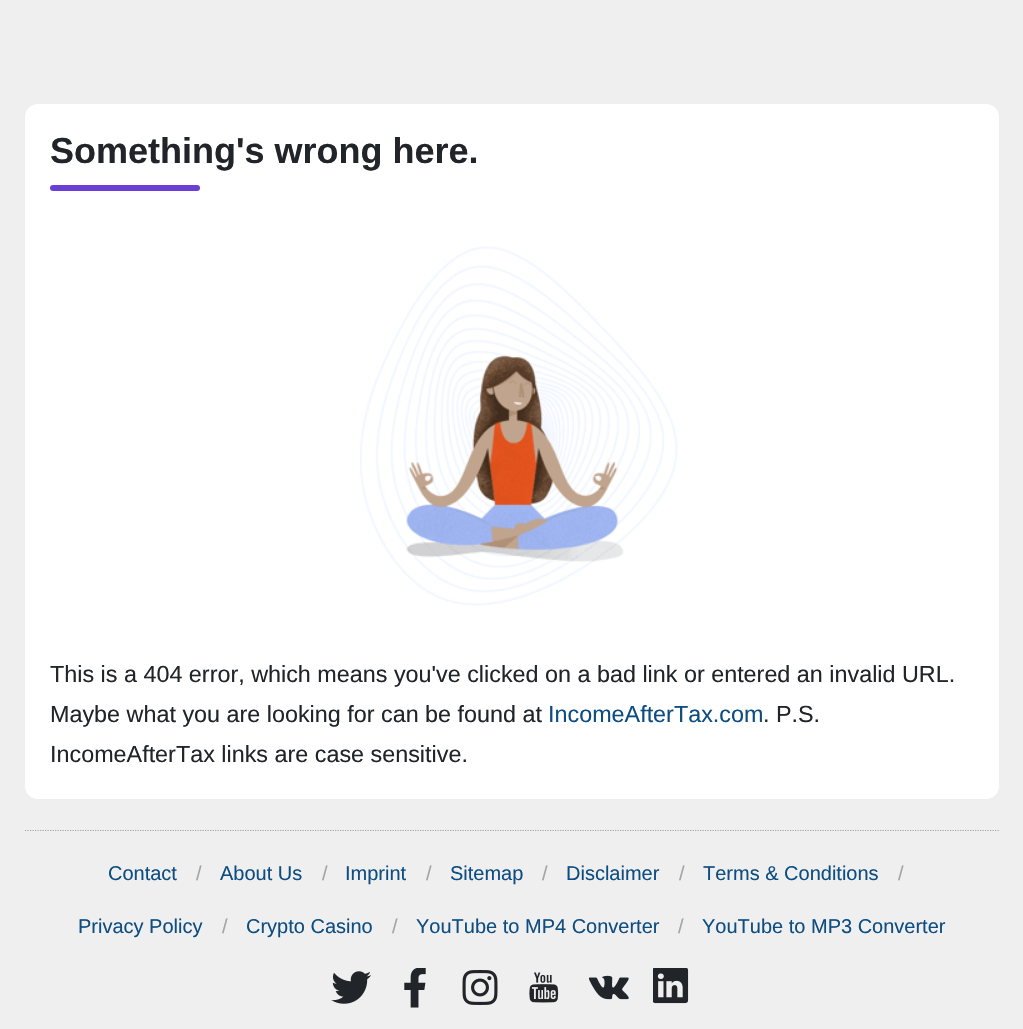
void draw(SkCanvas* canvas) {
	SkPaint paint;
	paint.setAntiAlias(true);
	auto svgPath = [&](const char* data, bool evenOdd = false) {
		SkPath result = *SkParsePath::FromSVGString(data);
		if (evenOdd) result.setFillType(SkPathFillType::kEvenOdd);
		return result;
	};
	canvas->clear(0xffefefef);
	paint.setColor(0xffffffff);
	canvas->drawRoundRect(SkRect::MakeXYWH(25, 104, 974, 695), 13, 13, paint);
	SkFont f1(fontMgr->matchFamilyStyle("Liberation Sans", SkFontStyle::Bold()), 36);
	f1.setSubpixel(true);
	paint.setColor(0xff212529);
	canvas->drawString("Something's wrong here.", 50, 163, f1, paint);
	paint.setColor(0xff693fd7);
	canvas->drawRoundRect(SkRect::MakeXYWH(50, 185, 150, 6), 3, 3, paint);
	canvas->drawImageRect(SkImages::DeferredFromEncodedData(SkData::MakeFromFileName("img1.png")), SkRect::MakeXYWH(360, 246, 318, 360), SkSamplingOptions());
	SkFont f2(fontMgr->matchFamilyStyle("Liberation Sans", SkFontStyle::Normal()), 23.35);
	f2.setSubpixel(true);
	paint.setColor(0xff212529);
	canvas->drawString("This is a 404 error, which means you've clicked on a bad link or entered an invalid URL.", 50, 682, f2, paint);
	canvas->drawString("Maybe what you are looking for can be found at", 50, 722, f2, paint);
	paint.setColor(0xff0e4d81);
	canvas->drawString("IncomeAfterTax.com", 548, 722, f2, paint);
	paint.setColor(0xff212529);
	canvas->drawString(". P.S.", 763, 722, f2, paint);
	canvas->drawString("IncomeAfterTax links are case sensitive.", 50, 762, f2, paint);
	paint.setStroke(true);
	paint.setStrokeWidth(1.2);
	paint.setColor(0xffa6a3a3);
	paint.setPathEffect(SkDashPathEffect::Make({{1.25f, 1.25f}}, 0));
	canvas->drawPath(svgPath("M25 830.5H999"), paint);
	paint.setPathEffect(nullptr);
	SkFont f3(fontMgr->matchFamilyStyle("Liberation Sans", SkFontStyle::Normal()), 20);
	f3.setSubpixel(true);
	paint.setStroke(false);
	paint.setColor(0xff0e4d81);
	canvas->drawString("Contact", 108, 880, f3, paint);
	paint.setColor(0xffa6a3a3);
	canvas->drawString("/", 196, 880, f3, paint);
	paint.setColor(0xff0e4d81);
	canvas->drawString("About Us", 220, 880, f3, paint);
	paint.setColor(0xffa6a3a3);
	canvas->drawString("/", 322, 880, f3, paint);
	paint.setColor(0xff0e4d81);
	canvas->drawString("Imprint", 345, 880, f3, paint);
	paint.setColor(0xffa6a3a3);
	canvas->drawString("/", 426, 880, f3, paint);
	paint.setColor(0xff0e4d81);
	canvas->drawString("Sitemap", 450, 880, f3, paint);
	paint.setColor(0xffa6a3a3);
	canvas->drawString("/", 542, 880, f3, paint);
	paint.setColor(0xff0e4d81);
	canvas->drawString("Disclaimer", 566, 880, f3, paint);
	paint.setColor(0xffa6a3a3);
	canvas->drawString("/", 679, 880, f3, paint);
	paint.setColor(0xff0e4d81);
	canvas->drawString("Terms & Conditions", 703, 880, f3, paint);
	paint.setColor(0xffa6a3a3);
	canvas->drawString("/", 898, 880, f3, paint);
	paint.setColor(0xff0e4d81);
	canvas->drawString("Privacy Policy", 78, 933, f3, paint);
	paint.setColor(0xffa6a3a3);
	canvas->drawString("/", 222, 933, f3, paint);
	paint.setColor(0xff0e4d81);
	canvas->drawString("Crypto Casino", 246, 933, f3, paint);
	paint.setColor(0xffa6a3a3);
	canvas->drawString("/", 392, 933, f3, paint);
	paint.setColor(0xff0e4d81);
	canvas->drawString("YouTube to MP4 Converter", 416, 933, f3, paint);
	paint.setColor(0xffa6a3a3);
	canvas->drawString("/", 678, 933, f3, paint);
	paint.setColor(0xff0e4d81);
	canvas->drawString("YouTube to MP3 Converter", 702, 933, f3, paint);
	canvas->drawImageRect(SkImages::DeferredFromEncodedData(SkData::MakeFromFileName("img2.png")), SkRect::MakeXYWH(331, 971, 40, 33), SkSamplingOptions());
	canvas->drawImageRect(SkImages::DeferredFromEncodedData(SkData::MakeFromFileName("img3.png")), SkRect::MakeXYWH(404, 968, 22, 40), SkSamplingOptions());
	canvas->drawImageRect(SkImages::DeferredFromEncodedData(SkData::MakeFromFileName("img4.png")), SkRect::MakeXYWH(462, 970, 36, 35), SkSamplingOptions());
	canvas->drawImageRect(SkImages::DeferredFromEncodedData(SkData::MakeFromFileName("img5.png")), SkRect::MakeXYWH(529, 972, 30, 31), SkSamplingOptions());
	canvas->drawImageRect(SkImages::DeferredFromEncodedData(SkData::MakeFromFileName("img6.png")), SkRect::MakeXYWH(589, 975, 40, 25), SkSamplingOptions());
	canvas->drawImageRect(SkImages::DeferredFromEncodedData(SkData::MakeFromFileName("img7.png")), SkRect::MakeXYWH(653, 968, 36, 36), SkSamplingOptions());
}
